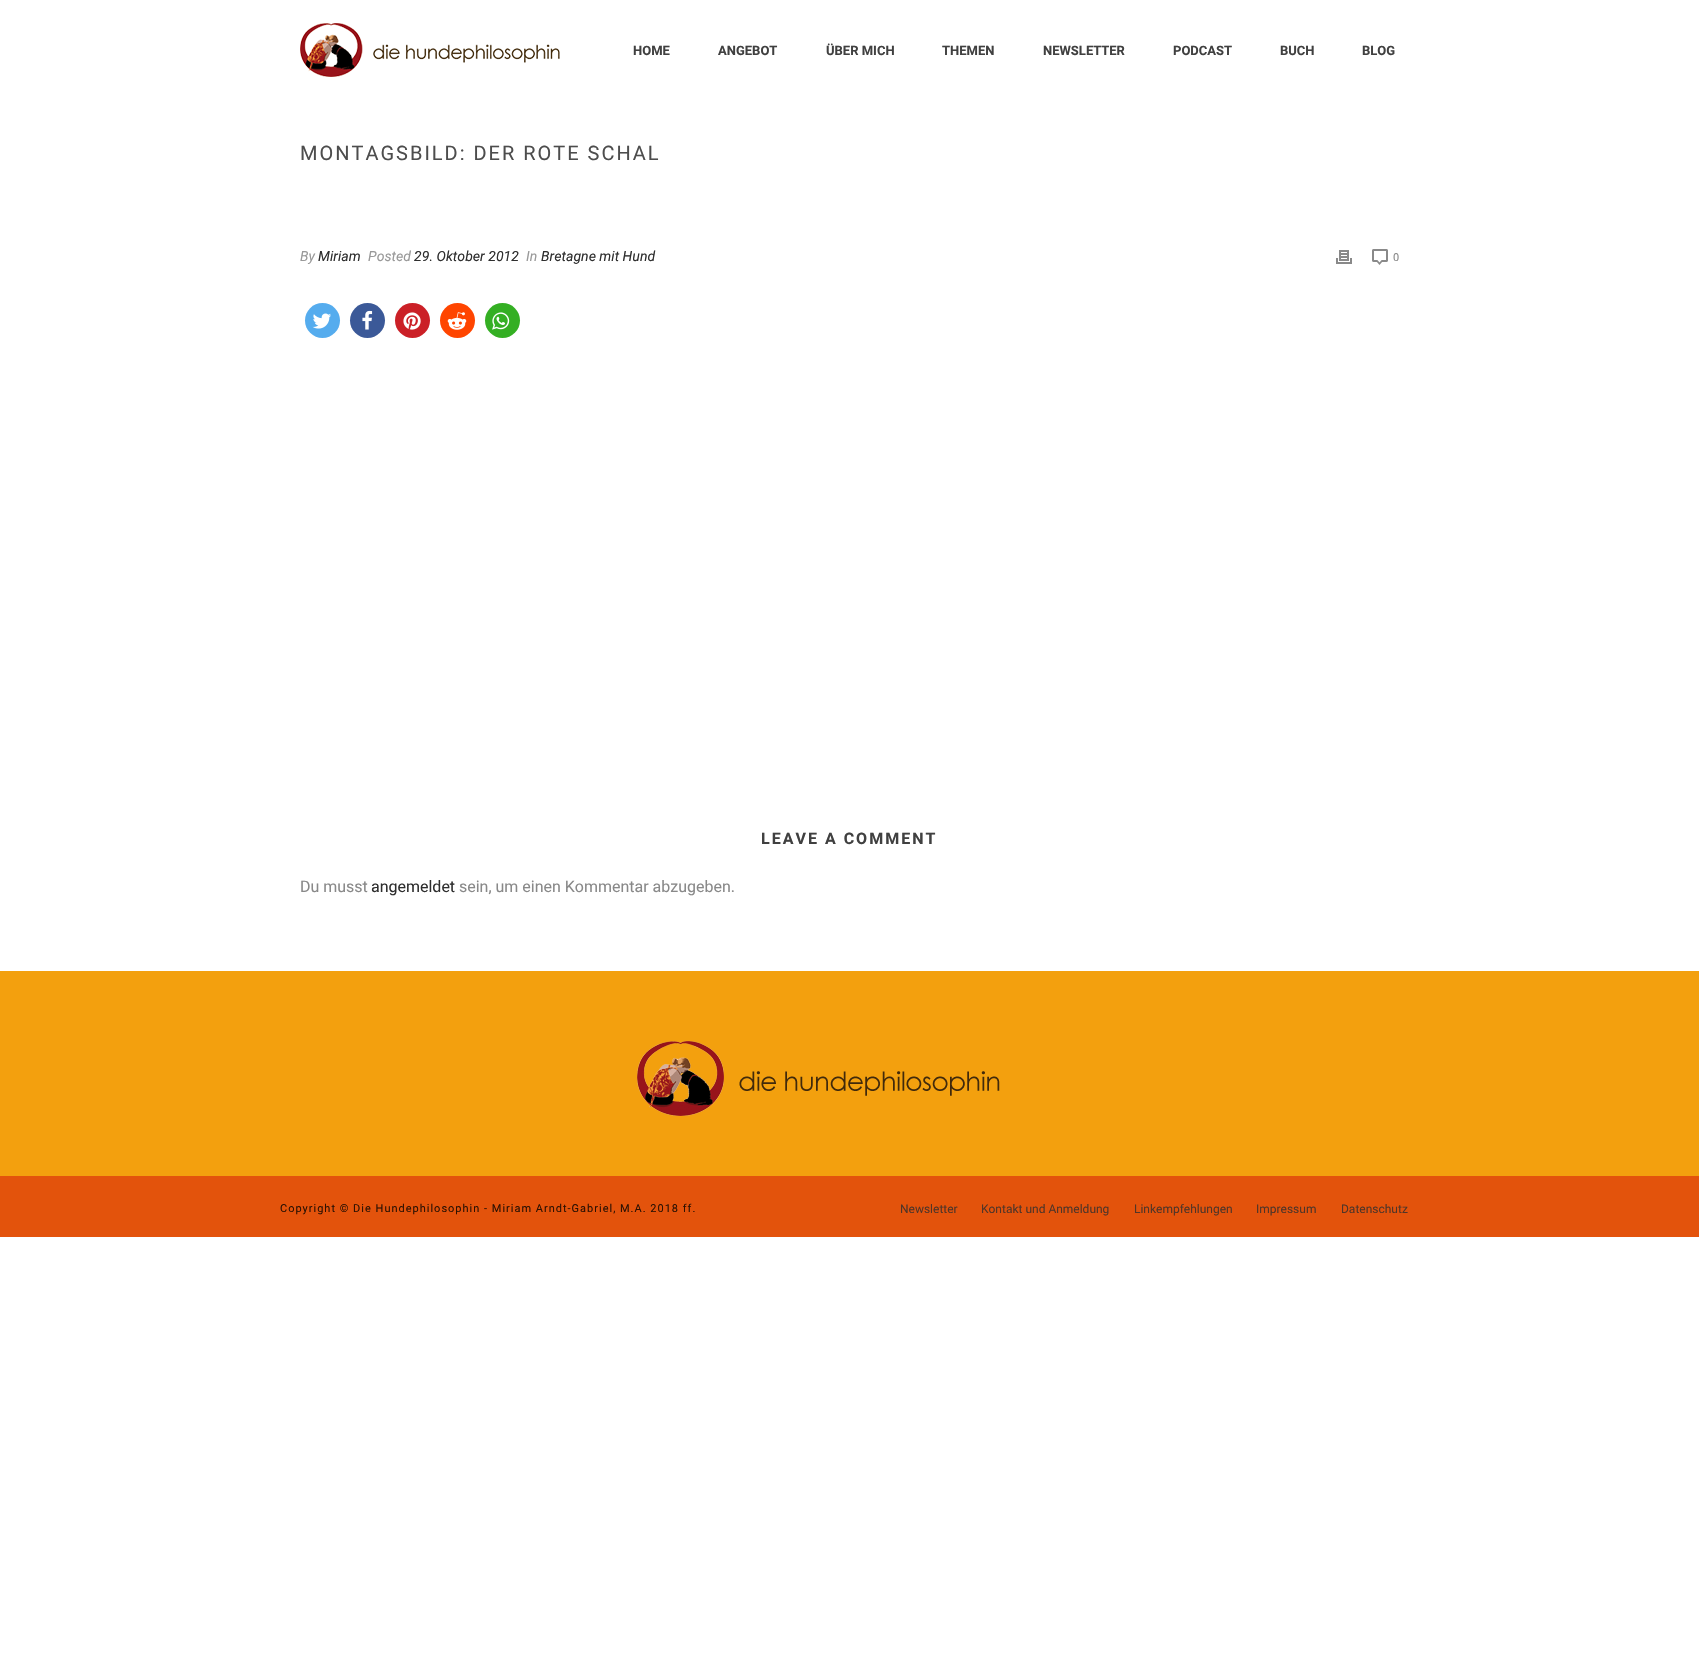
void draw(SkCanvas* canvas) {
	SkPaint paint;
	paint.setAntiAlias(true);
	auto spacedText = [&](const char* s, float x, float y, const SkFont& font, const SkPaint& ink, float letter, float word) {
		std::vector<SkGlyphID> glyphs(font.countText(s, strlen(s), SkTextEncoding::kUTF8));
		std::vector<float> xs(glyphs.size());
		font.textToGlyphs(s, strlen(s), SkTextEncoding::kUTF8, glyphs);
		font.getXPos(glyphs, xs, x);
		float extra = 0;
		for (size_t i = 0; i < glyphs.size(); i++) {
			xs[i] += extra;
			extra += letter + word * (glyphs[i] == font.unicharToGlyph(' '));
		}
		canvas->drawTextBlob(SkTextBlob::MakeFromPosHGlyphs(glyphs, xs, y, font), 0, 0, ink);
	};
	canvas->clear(0xffffffff);
	canvas->drawImageRect(SkImages::DeferredFromEncodedData(SkData::MakeFromFileName("img1.png")), SkRect::MakeXYWH(300, 23, 260, 54), SkSamplingOptions());
	SkFont f1(fontMgr->matchFamilyStyle("Roboto", SkFontStyle::Bold()), 13);
	f1.setSubpixel(true);
	paint.setColor(0xff404040);
	canvas->drawString("HOME", 633, 55, f1, paint);
	canvas->drawString("ANGEBOT", 718, 55, f1, paint);
	canvas->drawString("ÜBER MICH", 826, 55, f1, paint);
	canvas->drawString("THEMEN", 942, 55, f1, paint);
	canvas->drawString("NEWSLETTER", 1043, 55, f1, paint);
	canvas->drawString("PODCAST", 1173, 55, f1, paint);
	canvas->drawString("BUCH", 1280, 55, f1, paint);
	canvas->drawString("BLOG", 1362, 55, f1, paint);
	SkFont f2(fontMgr->matchFamilyStyle("Roboto", SkFontStyle::Normal()), 20);
	f2.setSubpixel(true);
	paint.setColor(0xff4d4d4d);
	spacedText("MONTAGSBILD: DER ROTE SCHAL", 300, 160, f2, paint, 2, 0);
	SkFont f3(fontMgr->matchFamilyStyle("Roboto", SkFontStyle::Italic()), 14);
	f3.setSubpixel(true);
	paint.setColor(0xff999999);
	canvas->drawString("By", 300, 261, f3, paint);
	paint.setColor(0xff2e2e2e);
	canvas->drawString("Miriam", 318, 261, f3, paint);
	paint.setColor(0xff999999);
	canvas->drawString("Posted", 368, 261, f3, paint);
	paint.setColor(0xff2e2e2e);
	canvas->drawString("29. Oktober 2012", 414, 261, f3, paint);
	paint.setColor(0xff999999);
	canvas->drawString("In", 526, 261, f3, paint);
	paint.setColor(0xff2e2e2e);
	canvas->drawString("Bretagne mit Hund", 541, 261, f3, paint);
	canvas->drawImageRect(SkImages::DeferredFromEncodedData(SkData::MakeFromFileName("img2.png")), SkRect::MakeXYWH(1336, 250, 16, 14), SkSamplingOptions());
	canvas->drawImageRect(SkImages::DeferredFromEncodedData(SkData::MakeFromFileName("img3.png")), SkRect::MakeXYWH(1372, 249, 16, 16), SkSamplingOptions());
	SkFont f4(fontMgr->matchFamilyStyle("Roboto", SkFontStyle::Normal()), 11);
	f4.setSubpixel(true);
	paint.setColor(0xff898989);
	canvas->drawString("0", 1393, 261, f4, paint);
	paint.setColor(0xff55acee);
	canvas->drawCircle(322.5, 320.5, 17.5, paint);
	canvas->drawImageRect(SkImages::DeferredFromEncodedData(SkData::MakeFromFileName("img4.png")), SkRect::MakeXYWH(312, 313, 19, 16), SkSamplingOptions());
	paint.setColor(0xff3b5998);
	canvas->drawCircle(367.5, 320.5, 17.5, paint);
	canvas->drawImageRect(SkImages::DeferredFromEncodedData(SkData::MakeFromFileName("img5.png")), SkRect::MakeXYWH(362, 310, 11, 20), SkSamplingOptions());
	paint.setColor(0xffcb2027);
	canvas->drawCircle(412.5, 320.5, 17.5, paint);
	canvas->drawImageRect(SkImages::DeferredFromEncodedData(SkData::MakeFromFileName("img6.png")), SkRect::MakeXYWH(403, 312, 18, 18), SkSamplingOptions());
	paint.setColor(0xffff4500);
	canvas->drawCircle(457.5, 320.5, 17.5, paint);
	canvas->drawImageRect(SkImages::DeferredFromEncodedData(SkData::MakeFromFileName("img7.png")), SkRect::MakeXYWH(447, 312, 20, 18), SkSamplingOptions());
	paint.setColor(0xff34af23);
	canvas->drawCircle(502.5, 320.5, 17.5, paint);
	canvas->drawImageRect(SkImages::DeferredFromEncodedData(SkData::MakeFromFileName("img8.png")), SkRect::MakeXYWH(492, 312, 18, 18), SkSamplingOptions());
	SkFont f5(fontMgr->matchFamilyStyle("Roboto", SkFontStyle::Bold()), 16);
	f5.setSubpixel(true);
	paint.setColor(0xff404040);
	spacedText("LEAVE A COMMENT", 761, 844, f5, paint, 2, 0);
	SkFont f6(fontMgr->matchFamilyStyle("Roboto", SkFontStyle::Normal()), 16);
	f6.setSubpixel(true);
	paint.setColor(0xff898989);
	canvas->drawString("Du musst", 300, 892, f6, paint);
	paint.setColor(0xff2e2e2e);
	canvas->drawString("angemeldet", 371, 892, f6, paint);
	paint.setColor(0xff898989);
	canvas->drawString("sein, um einen Kommentar abzugeben.", 459, 892, f6, paint);
	paint.setColor(0xfff3a00e);
	canvas->drawRect(SkRect::MakeXYWH(0, 971, 1699, 205), paint);
	canvas->drawImageRect(SkImages::DeferredFromEncodedData(SkData::MakeFromFileName("img9.png")), SkRect::MakeXYWH(637, 1041, 363, 75), SkSamplingOptions());
	paint.setColor(0xffe3530c);
	canvas->drawRect(SkRect::MakeXYWH(0, 1176, 1699, 61), paint);
	paint.setColor(0xff2d1102);
	spacedText("Copyright © Die Hundephilosophin - Miriam Arndt-Gabriel, M.A. 2018 ff.", 280, 1212, f4, paint, 1, 0);
	SkFont f7(fontMgr->matchFamilyStyle("Roboto", SkFontStyle::Normal()), 12);
	f7.setSubpixel(true);
	paint.setColor(0xff523527);
	canvas->drawString("Newsletter", 900, 1213, f7, paint);
	canvas->drawString("Kontakt und Anmeldung", 981, 1213, f7, paint);
	canvas->drawString("Linkempfehlungen", 1134, 1213, f7, paint);
	canvas->drawString("Impressum", 1256, 1213, f7, paint);
	canvas->drawString("Datenschutz", 1341, 1213, f7, paint);
}
